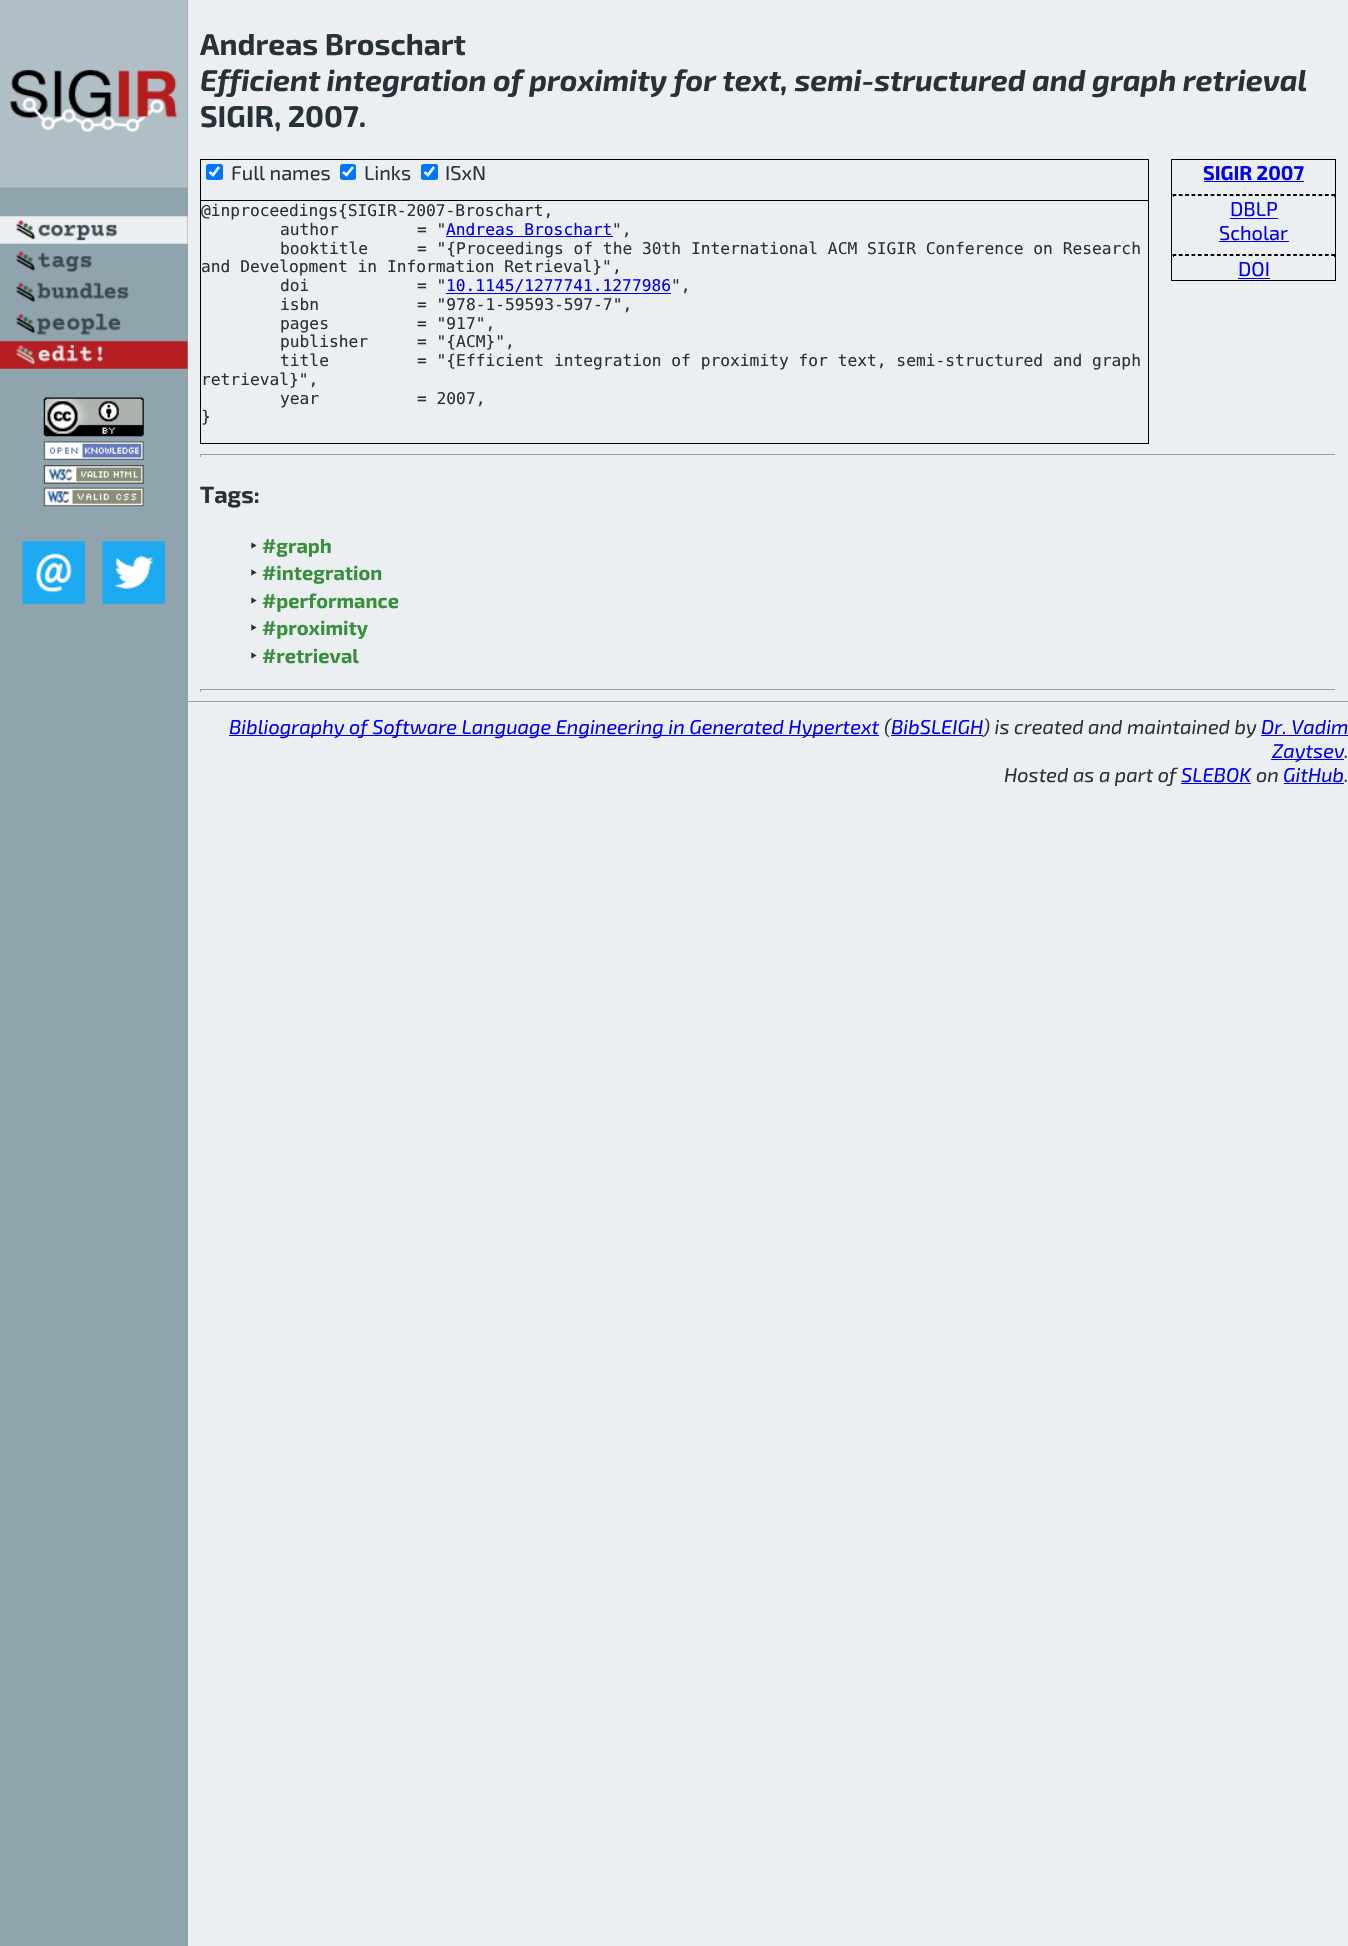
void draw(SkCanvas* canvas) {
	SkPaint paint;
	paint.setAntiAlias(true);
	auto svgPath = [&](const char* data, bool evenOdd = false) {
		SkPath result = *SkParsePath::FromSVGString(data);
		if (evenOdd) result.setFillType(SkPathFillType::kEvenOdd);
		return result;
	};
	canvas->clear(0xffeceff1);
	paint.setColor(0xff90a4ae);
	canvas->drawRect(SkRect::MakeXYWH(0, 0, 188, 1946), paint);
	canvas->drawImageRect(SkImages::DeferredFromEncodedData(SkData::MakeFromFileName("img1.png")), SkRect::MakeXYWH(0, 0, 188, 188), SkSamplingOptions());
	canvas->drawImageRect(SkImages::DeferredFromEncodedData(SkData::MakeFromFileName("img2.png")), SkRect::MakeXYWH(0, 216, 188, 28), SkSamplingOptions());
	canvas->drawImageRect(SkImages::DeferredFromEncodedData(SkData::MakeFromFileName("img3.png")), SkRect::MakeXYWH(16, 251, 76, 22), SkSamplingOptions());
	canvas->drawImageRect(SkImages::DeferredFromEncodedData(SkData::MakeFromFileName("img4.png")), SkRect::MakeXYWH(16, 282, 113, 21), SkSamplingOptions());
	canvas->drawImageRect(SkImages::DeferredFromEncodedData(SkData::MakeFromFileName("img5.png")), SkRect::MakeXYWH(16, 313, 105, 23), SkSamplingOptions());
	canvas->drawImageRect(SkImages::DeferredFromEncodedData(SkData::MakeFromFileName("img6.png")), SkRect::MakeXYWH(0, 341, 188, 28), SkSamplingOptions());
	canvas->drawImageRect(SkImages::DeferredFromEncodedData(SkData::MakeFromFileName("img7.png")), SkRect::MakeXYWH(43, 397, 101, 40), SkSamplingOptions());
	canvas->drawImageRect(SkImages::DeferredFromEncodedData(SkData::MakeFromFileName("img8.png")), SkRect::MakeXYWH(43, 441, 101, 19), SkSamplingOptions());
	canvas->drawImageRect(SkImages::DeferredFromEncodedData(SkData::MakeFromFileName("img9.png")), SkRect::MakeXYWH(43, 465, 101, 19), SkSamplingOptions());
	canvas->drawImageRect(SkImages::DeferredFromEncodedData(SkData::MakeFromFileName("img10.png")), SkRect::MakeXYWH(43, 487, 101, 20), SkSamplingOptions());
	canvas->drawImageRect(SkImages::DeferredFromEncodedData(SkData::MakeFromFileName("img11.png")), SkRect::MakeXYWH(22, 541, 63, 63), SkSamplingOptions());
	canvas->drawImageRect(SkImages::DeferredFromEncodedData(SkData::MakeFromFileName("img12.png")), SkRect::MakeXYWH(102, 541, 63, 63), SkSamplingOptions());
	SkFont f1(fontMgr->matchFamilyStyle("Exo 2", SkFontStyle::Bold()), 30);
	f1.setSubpixel(true);
	paint.setColor(0xff263238);
	canvas->drawString("Andreas Broschart", 200, 55, f1, paint);
	SkFont f2(fontMgr->matchFamilyStyle("Exo 2", SkFontStyle::BoldItalic()), 30);
	f2.setSubpixel(true);
	canvas->drawString("Efficient integration of proximity for text, semi-structured and graph retrieval", 200, 91, f2, paint);
	canvas->drawString("SIGIR, 2007.", 200, 127, f1, paint);
	paint.setStroke(true);
	paint.setStrokeWidth(1);
	paint.setColor(0xff000000);
	canvas->drawRect(SkRect::MakeXYWH(200.5, 159.5, 948, 284), paint);
	paint.setStroke(false);
	paint.setColor(0xff0075ff);
	canvas->drawRoundRect(SkRect::MakeXYWH(206, 164, 17, 16), 2.5, 2.5, paint);
	paint.setStroke(true);
	paint.setStrokeWidth(2.6);
	paint.setColor(0xffffffff);
	canvas->drawPath(svgPath("M209.5 172L213 175L219 167"), paint);
	SkFont f3(fontMgr->matchFamilyStyle("Exo 2", SkFontStyle::Normal()), 20);
	f3.setSubpixel(true);
	paint.setStroke(false);
	paint.setColor(0xff263238);
	canvas->drawString("Full names", 231, 180, f3, paint);
	paint.setColor(0xff0075ff);
	canvas->drawRoundRect(SkRect::MakeXYWH(340, 164, 16, 16), 2.5, 2.5, paint);
	paint.setStroke(true);
	paint.setColor(0xffffffff);
	canvas->drawPath(svgPath("M343 172L346.5 175L353 167"), paint);
	paint.setStroke(false);
	paint.setColor(0xff263238);
	canvas->drawString("Links", 364, 180, f3, paint);
	paint.setColor(0xff0075ff);
	canvas->drawRoundRect(SkRect::MakeXYWH(421, 164, 17, 16), 2.5, 2.5, paint);
	paint.setStroke(true);
	paint.setColor(0xffffffff);
	canvas->drawPath(svgPath("M424.5 172L428 175L434 167"), paint);
	paint.setStroke(false);
	paint.setColor(0xff263238);
	canvas->drawString("ISxN", 445, 180, f3, paint);
	paint.setColor(0xff000000);
	canvas->drawRect(SkRect::MakeXYWH(201, 200, 947, 1), paint);
	SkFont f4(fontMgr->matchFamilyStyle("DejaVu Sans Mono", SkFontStyle::Normal()), 16.25);
	f4.setSubpixel(true);
	paint.setColor(0xff263238);
	canvas->drawString("@inproceedings{SIGIR-2007-Broschart,", 201, 216, f4, paint);
	canvas->drawString("author        = \"", 280, 235, f4, paint);
	paint.setColor(0xff0000ee);
	canvas->drawString("Andreas Broschart", 446, 235, f4, paint);
	canvas->drawRect(SkRect::MakeXYWH(446, 236, 167, 1), paint);
	paint.setColor(0xff263238);
	canvas->drawString("\",", 612, 235, f4, paint);
	canvas->drawString("booktitle     = \"{Proceedings of the 30th International ACM SIGIR Conference on Research", 280, 254, f4, paint);
	canvas->drawString("and Development in Information Retrieval}\",", 201, 272, f4, paint);
	canvas->drawString("doi           = \"", 280, 291, f4, paint);
	paint.setColor(0xff0000ee);
	canvas->drawString("10.1145/1277741.1277986", 446, 291, f4, paint);
	canvas->drawRect(SkRect::MakeXYWH(446, 293, 225, 1), paint);
	paint.setColor(0xff263238);
	canvas->drawString("\",", 671, 291, f4, paint);
	canvas->drawString("isbn          = \"978-1-59593-597-7\",", 280, 310, f4, paint);
	canvas->drawString("pages         = \"917\",", 280, 329, f4, paint);
	canvas->drawString("publisher     = \"{ACM}\",", 280, 347, f4, paint);
	canvas->drawString("title         = \"{Efficient integration of proximity for text, semi-structured and graph", 280, 366, f4, paint);
	canvas->drawString("retrieval}\",", 201, 385, f4, paint);
	canvas->drawString("year          = 2007,", 280, 404, f4, paint);
	canvas->drawString("}", 201, 422, f4, paint);
	paint.setStroke(true);
	paint.setStrokeWidth(1);
	paint.setColor(0xff000000);
	canvas->drawRect(SkRect::MakeXYWH(1171.5, 159.5, 164, 121), paint);
	SkFont f5(fontMgr->matchFamilyStyle("Exo 2", SkFontStyle::Bold()), 20);
	f5.setSubpixel(true);
	paint.setStroke(false);
	paint.setColor(0xff0000ee);
	canvas->drawString("SIGIR 2007", 1203, 180, f5, paint);
	canvas->drawRect(SkRect::MakeXYWH(1204, 181, 100, 1), paint);
	paint.setStroke(true);
	paint.setStrokeWidth(1.2);
	paint.setColor(0xff000000);
	paint.setPathEffect(SkDashPathEffect::Make({{3.75f, 2.6f}}, 0));
	canvas->drawPath(svgPath("M1172.5 194.5H1335"), paint);
	paint.setPathEffect(nullptr);
	paint.setStroke(false);
	canvas->drawRect(SkRect::MakeXYWH(1334, 194, 1, 3), paint);
	paint.setStroke(true);
	paint.setPathEffect(SkDashPathEffect::Make({{3.75f, 2.6f}}, 0));
	canvas->drawPath(svgPath("M1172.5 195.5H1335"), paint);
	paint.setPathEffect(nullptr);
	paint.setStroke(false);
	canvas->drawRect(SkRect::MakeXYWH(1173, 194, 1, 3), paint);
	paint.setColor(0xff0000ee);
	canvas->drawString("DBLP", 1230, 216, f3, paint);
	canvas->drawRect(SkRect::MakeXYWH(1230, 218, 48, 1), paint);
	canvas->drawString("Scholar", 1219, 240, f3, paint);
	canvas->drawRect(SkRect::MakeXYWH(1219, 241, 70, 1), paint);
	paint.setStroke(true);
	paint.setColor(0xff000000);
	paint.setPathEffect(SkDashPathEffect::Make({{3.75f, 2.6f}}, 0));
	canvas->drawPath(svgPath("M1172.5 254.5H1335"), paint);
	paint.setPathEffect(nullptr);
	paint.setStroke(false);
	canvas->drawRect(SkRect::MakeXYWH(1334, 254, 1, 3), paint);
	paint.setStroke(true);
	paint.setPathEffect(SkDashPathEffect::Make({{3.75f, 2.6f}}, 0));
	canvas->drawPath(svgPath("M1172.5 255.5H1335"), paint);
	paint.setPathEffect(nullptr);
	paint.setStroke(false);
	canvas->drawRect(SkRect::MakeXYWH(1173, 254, 1, 3), paint);
	paint.setColor(0xff0000ee);
	canvas->drawString("DOI", 1238, 276, f3, paint);
	canvas->drawRect(SkRect::MakeXYWH(1238, 278, 32, 1), paint);
	paint.setColor(0xff9f9f9f);
	canvas->drawRect(SkRect::MakeXYWH(200, 454, 1136, 1), paint);
	paint.setColor(0xffeeeeee);
	canvas->drawRect(SkRect::MakeXYWH(1335, 454, 1, 3), paint);
	canvas->drawRect(SkRect::MakeXYWH(200, 455, 1136, 1), paint);
	paint.setColor(0xff9f9f9f);
	canvas->drawRect(SkRect::MakeXYWH(200, 454, 1, 3), paint);
	SkFont f6(fontMgr->matchFamilyStyle("Exo 2", SkFontStyle::Bold()), 23.5);
	f6.setSubpixel(true);
	paint.setColor(0xff263238);
	canvas->drawString("Tags:", 200, 503, f6, paint);
	SkFont f7(fontMgr->matchFamilyStyle("Noto Sans", SkFontStyle::Normal()), 20);
	f7.setSubpixel(true);
	canvas->drawString("‣", 250, 553, f7, paint);
	paint.setColor(0xff388e3c);
	canvas->drawString("#graph", 262, 553, f5, paint);
	paint.setColor(0xff263238);
	canvas->drawString("‣", 250, 580, f7, paint);
	paint.setColor(0xff388e3c);
	canvas->drawString("#integration", 262, 580, f5, paint);
	paint.setColor(0xff263238);
	canvas->drawString("‣", 250, 608, f7, paint);
	paint.setColor(0xff388e3c);
	canvas->drawString("#performance", 262, 608, f5, paint);
	paint.setColor(0xff263238);
	canvas->drawString("‣", 250, 635, f7, paint);
	paint.setColor(0xff388e3c);
	canvas->drawString("#proximity", 262, 635, f5, paint);
	paint.setColor(0xff263238);
	canvas->drawString("‣", 250, 663, f7, paint);
	paint.setColor(0xff388e3c);
	canvas->drawString("#retrieval", 262, 663, f5, paint);
	paint.setColor(0xff9f9f9f);
	canvas->drawRect(SkRect::MakeXYWH(200, 689, 1136, 1), paint);
	paint.setColor(0xffeeeeee);
	canvas->drawRect(SkRect::MakeXYWH(1335, 689, 1, 3), paint);
	canvas->drawRect(SkRect::MakeXYWH(200, 690, 1136, 1), paint);
	paint.setColor(0xff9f9f9f);
	canvas->drawRect(SkRect::MakeXYWH(200, 689, 1, 3), paint);
	canvas->drawRect(SkRect::MakeXYWH(188, 701, 1160, 1), paint);
	paint.setColor(0xffeeeeee);
	canvas->drawRect(SkRect::MakeXYWH(188, 703, 1160, 1), paint);
	paint.setColor(0xff0000ee);
	canvas->drawRect(SkRect::MakeXYWH(229, 735, 650, 1), paint);
	SkFont f8(fontMgr->matchFamilyStyle("Exo 2", SkFontStyle::Italic()), 20);
	f8.setSubpixel(true);
	canvas->drawString("Bibliography of Software Language Engineering in Generated Hypertext", 229, 734, f8, paint);
	paint.setColor(0xff263238);
	canvas->drawString("(", 884, 734, f8, paint);
	paint.setColor(0xff0000ee);
	canvas->drawString("BibSLEIGH", 891, 734, f8, paint);
	canvas->drawRect(SkRect::MakeXYWH(891, 735, 92, 1), paint);
	paint.setColor(0xff263238);
	canvas->drawString(") is created and maintained by", 983, 734, f8, paint);
	paint.setColor(0xff0000ee);
	canvas->drawString("Dr. Vadim", 1261, 734, f8, paint);
	canvas->drawRect(SkRect::MakeXYWH(1261, 735, 87, 1), paint);
	canvas->drawRect(SkRect::MakeXYWH(1271, 759, 73, 1), paint);
	canvas->drawString("Zaytsev", 1272, 758, f8, paint);
	paint.setColor(0xff263238);
	canvas->drawString(".", 1344, 758, f8, paint);
	canvas->drawString("Hosted as a part of", 1004, 782, f8, paint);
	paint.setColor(0xff0000ee);
	canvas->drawRect(SkRect::MakeXYWH(1181, 783, 70, 1), paint);
	canvas->drawString("SLEBOK", 1181, 782, f8, paint);
	paint.setColor(0xff263238);
	canvas->drawString("on", 1256, 782, f8, paint);
	paint.setColor(0xff0000ee);
	canvas->drawString("GitHub", 1283, 782, f8, paint);
	paint.setColor(0xff263238);
	canvas->drawString(".", 1344, 782, f8, paint);
	paint.setColor(0xff0000ee);
	canvas->drawRect(SkRect::MakeXYWH(1284, 783, 60, 1), paint);
}
